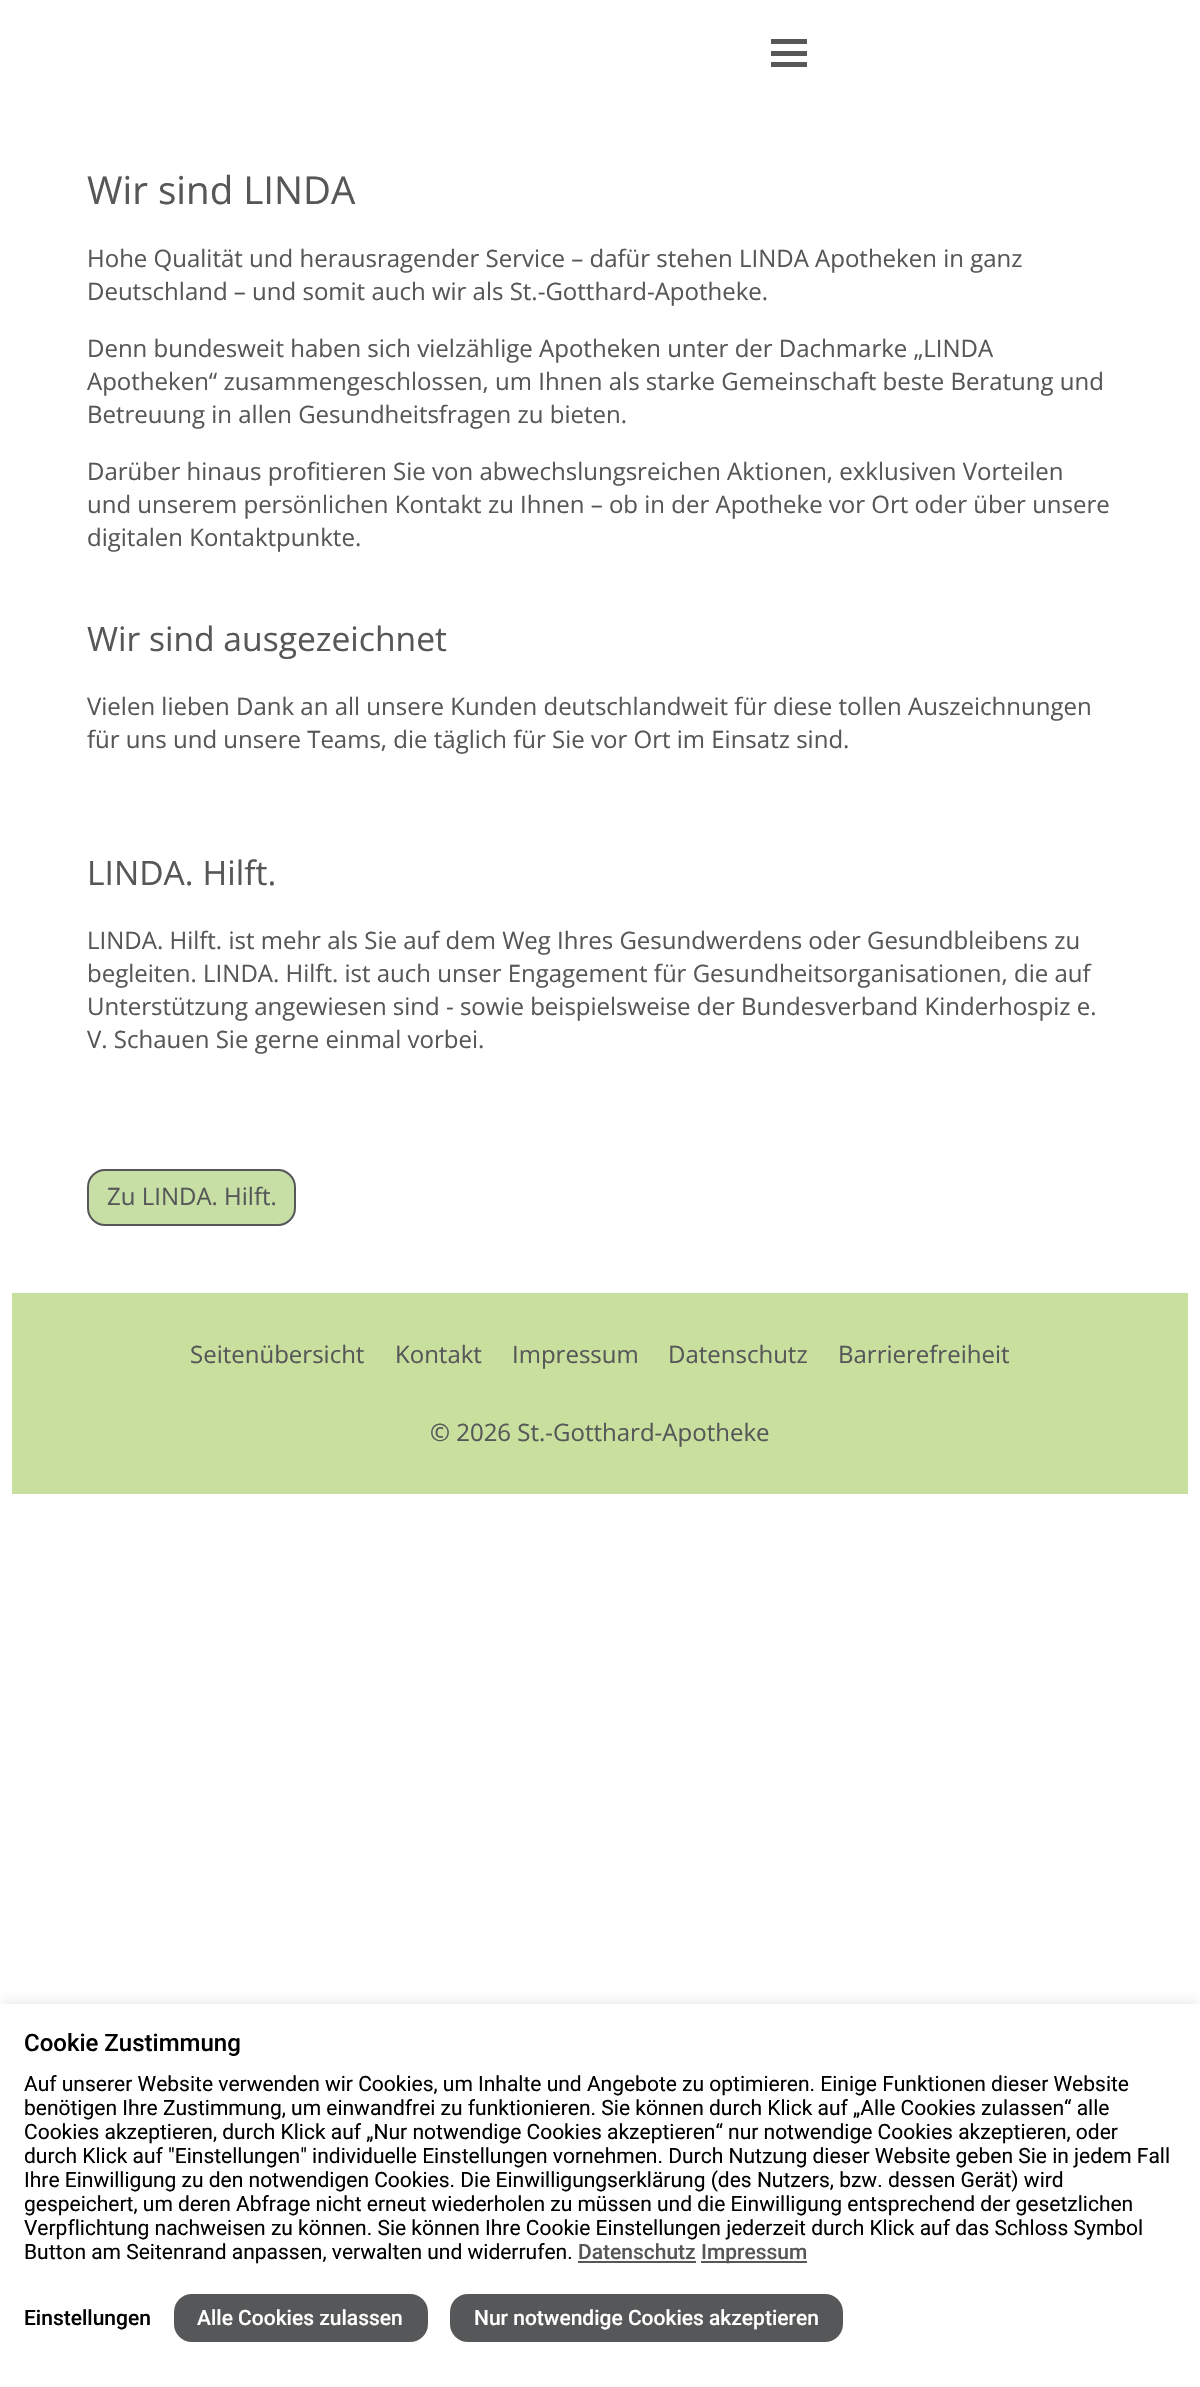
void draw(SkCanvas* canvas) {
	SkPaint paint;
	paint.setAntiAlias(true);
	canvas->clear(0xffffffff);
	paint.setColor(0xff565758);
	canvas->drawRect(SkRect::MakeXYWH(771, 39, 36, 5), paint);
	canvas->drawRect(SkRect::MakeXYWH(771, 51, 36, 5), paint);
	canvas->drawRect(SkRect::MakeXYWH(771, 62, 36, 5), paint);
	SkFont f1(fontMgr->matchFamilyStyle("Open Sans", SkFontStyle::Normal()), 38.5);
	f1.setSubpixel(true);
	canvas->drawString("Wir sind LINDA", 87, 204, f1, paint);
	SkFont f2(fontMgr->matchFamilyStyle("Open Sans", SkFontStyle::Normal()), 24);
	f2.setSubpixel(true);
	canvas->drawString("Hohe Qualität und herausragender Service – dafür stehen LINDA Apotheken in ganz", 87, 267, f2, paint);
	canvas->drawString("Deutschland – und somit auch wir als St.-Gotthard-Apotheke.", 87, 300, f2, paint);
	canvas->drawString("Denn bundesweit haben sich vielzählige Apotheken unter der Dachmarke „LINDA", 87, 357, f2, paint);
	canvas->drawString("Apotheken“ zusammengeschlossen, um Ihnen als starke Gemeinschaft beste Beratung und", 87, 390, f2, paint);
	canvas->drawString("Betreuung in allen Gesundheitsfragen zu bieten.", 87, 423, f2, paint);
	canvas->drawString("Darüber hinaus profitieren Sie von abwechslungsreichen Aktionen, exklusiven Vorteilen", 87, 480, f2, paint);
	canvas->drawString("und unserem persönlichen Kontakt zu Ihnen – ob in der Apotheke vor Ort oder über unsere", 87, 513, f2, paint);
	canvas->drawString("digitalen Kontaktpunkte.", 87, 546, f2, paint);
	SkFont f3(fontMgr->matchFamilyStyle("Open Sans", SkFontStyle::Normal()), 33.6);
	f3.setSubpixel(true);
	canvas->drawString("Wir sind ausgezeichnet", 87, 651, f3, paint);
	canvas->drawString("Vielen lieben Dank an all unsere Kunden deutschlandweit für diese tollen Auszeichnungen", 87, 715, f2, paint);
	canvas->drawString("für uns und unsere Teams, die täglich für Sie vor Ort im Einsatz sind.", 87, 748, f2, paint);
	canvas->drawString("LINDA. Hilft.", 87, 885, f3, paint);
	canvas->drawString("LINDA. Hilft. ist mehr als Sie auf dem Weg Ihres Gesundwerdens oder Gesundbleibens zu", 87, 949, f2, paint);
	canvas->drawString("begleiten. LINDA. Hilft. ist auch unser Engagement für Gesundheitsorganisationen, die auf", 87, 982, f2, paint);
	canvas->drawString("Unterstützung angewiesen sind - sowie beispielsweise der Bundesverband Kinderhospiz e.", 87, 1015, f2, paint);
	canvas->drawString("V. Schauen Sie gerne einmal vorbei.", 87, 1048, f2, paint);
	paint.setColor(0xffc7dea5);
	canvas->drawRoundRect(SkRect::MakeXYWH(88, 1170, 207, 55), 17, 17, paint);
	paint.setStroke(true);
	paint.setStrokeWidth(2);
	paint.setColor(0xff565758);
	canvas->drawRoundRect(SkRect::MakeXYWH(88, 1170, 207, 55), 17, 17, paint);
	paint.setStroke(false);
	canvas->drawString("Zu LINDA. Hilft.", 107, 1205, f2, paint);
	paint.setColor(0xffc9df9e);
	canvas->drawRect(SkRect::MakeXYWH(12, 1293, 1176, 201), paint);
	paint.setColor(0xff565758);
	canvas->drawString("Seitenübersicht", 190, 1363, f2, paint);
	canvas->drawString("Kontakt", 395, 1363, f2, paint);
	canvas->drawString("Impressum", 512, 1363, f2, paint);
	canvas->drawString("Datenschutz", 668, 1363, f2, paint);
	canvas->drawString("Barrierefreiheit", 838, 1363, f2, paint);
	canvas->drawString("© 2026 St.-Gotthard-Apotheke", 430, 1441, f2, paint);
	canvas->save();
	canvas->clipRect(SkRect::MakeXYWH(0, 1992, 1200, 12));
	paint.setColor(0x4dacabab);
	paint.setMaskFilter(SkMaskFilter::MakeBlur(kNormal_SkBlurStyle, 7.5));
	canvas->drawRect(SkRect::MakeXYWH(0, 2003, 1200, 384), paint);
	paint.setMaskFilter(nullptr);
	canvas->restore();
	SkFont f4(fontMgr->matchFamilyStyle("Roboto", SkFontStyle(500, SkFontStyle::kNormal_Width, SkFontStyle::kUpright_Slant)), 24);
	f4.setSubpixel(true);
	paint.setColor(0xff000000);
	canvas->drawString("Cookie Zustimmung", 24, 2051, f4, paint);
	SkFont f5(fontMgr->matchFamilyStyle("Roboto", SkFontStyle::Normal()), 21);
	f5.setSubpixel(true);
	canvas->drawString("Auf unserer Website verwenden wir Cookies, um Inhalte und Angebote zu optimieren. Einige Funktionen dieser Website", 24, 2091, f5, paint);
	canvas->drawString("benötigen Ihre Zustimmung, um einwandfrei zu funktionieren. Sie können durch Klick auf „Alle Cookies zulassen“ alle", 24, 2115, f5, paint);
	canvas->drawString("Cookies akzeptieren, durch Klick auf „Nur notwendige Cookies akzeptieren“ nur notwendige Cookies akzeptieren, oder", 24, 2139, f5, paint);
	canvas->drawString("durch Klick auf \"Einstellungen\" individuelle Einstellungen vornehmen. Durch Nutzung dieser Website geben Sie in jedem Fall", 24, 2163, f5, paint);
	canvas->drawString("Ihre Einwilligung zu den notwendigen Cookies. Die Einwilligungserklärung (des Nutzers, bzw. dessen Gerät) wird", 24, 2187, f5, paint);
	canvas->drawString("gespeichert, um deren Abfrage nicht erneut wiederholen zu müssen und die Einwilligung entsprechend der gesetzlichen", 24, 2211, f5, paint);
	canvas->drawString("Verpflichtung nachweisen zu können. Sie können Ihre Cookie Einstellungen jederzeit durch Klick auf das Schloss Symbol", 24, 2235, f5, paint);
	canvas->drawString("Button am Seitenrand anpassen, verwalten und widerrufen.", 24, 2259, f5, paint);
	SkFont f6(fontMgr->matchFamilyStyle("Roboto", SkFontStyle(500, SkFontStyle::kNormal_Width, SkFontStyle::kUpright_Slant)), 21);
	f6.setSubpixel(true);
	paint.setColor(0xff565758);
	canvas->drawString("Datenschutz", 578, 2259, f6, paint);
	canvas->drawRect(SkRect::MakeXYWH(578, 2261, 118, 2), paint);
	canvas->drawRect(SkRect::MakeXYWH(701, 2261, 106, 2), paint);
	canvas->drawString("Impressum", 701, 2259, f6, paint);
	paint.setColor(0xff000000);
	canvas->drawString("Einstellungen", 24, 2325, f6, paint);
	paint.setColor(0xff565758);
	canvas->drawRoundRect(SkRect::MakeXYWH(174, 2294, 254, 48), 18, 18, paint);
	paint.setColor(0xffffffff);
	canvas->drawString("Alle Cookies zulassen", 197, 2325, f6, paint);
	paint.setColor(0xff565758);
	canvas->drawRoundRect(SkRect::MakeXYWH(450, 2294, 393, 48), 18, 18, paint);
	paint.setColor(0xffffffff);
	canvas->drawString("Nur notwendige Cookies akzeptieren", 474, 2325, f6, paint);
}
